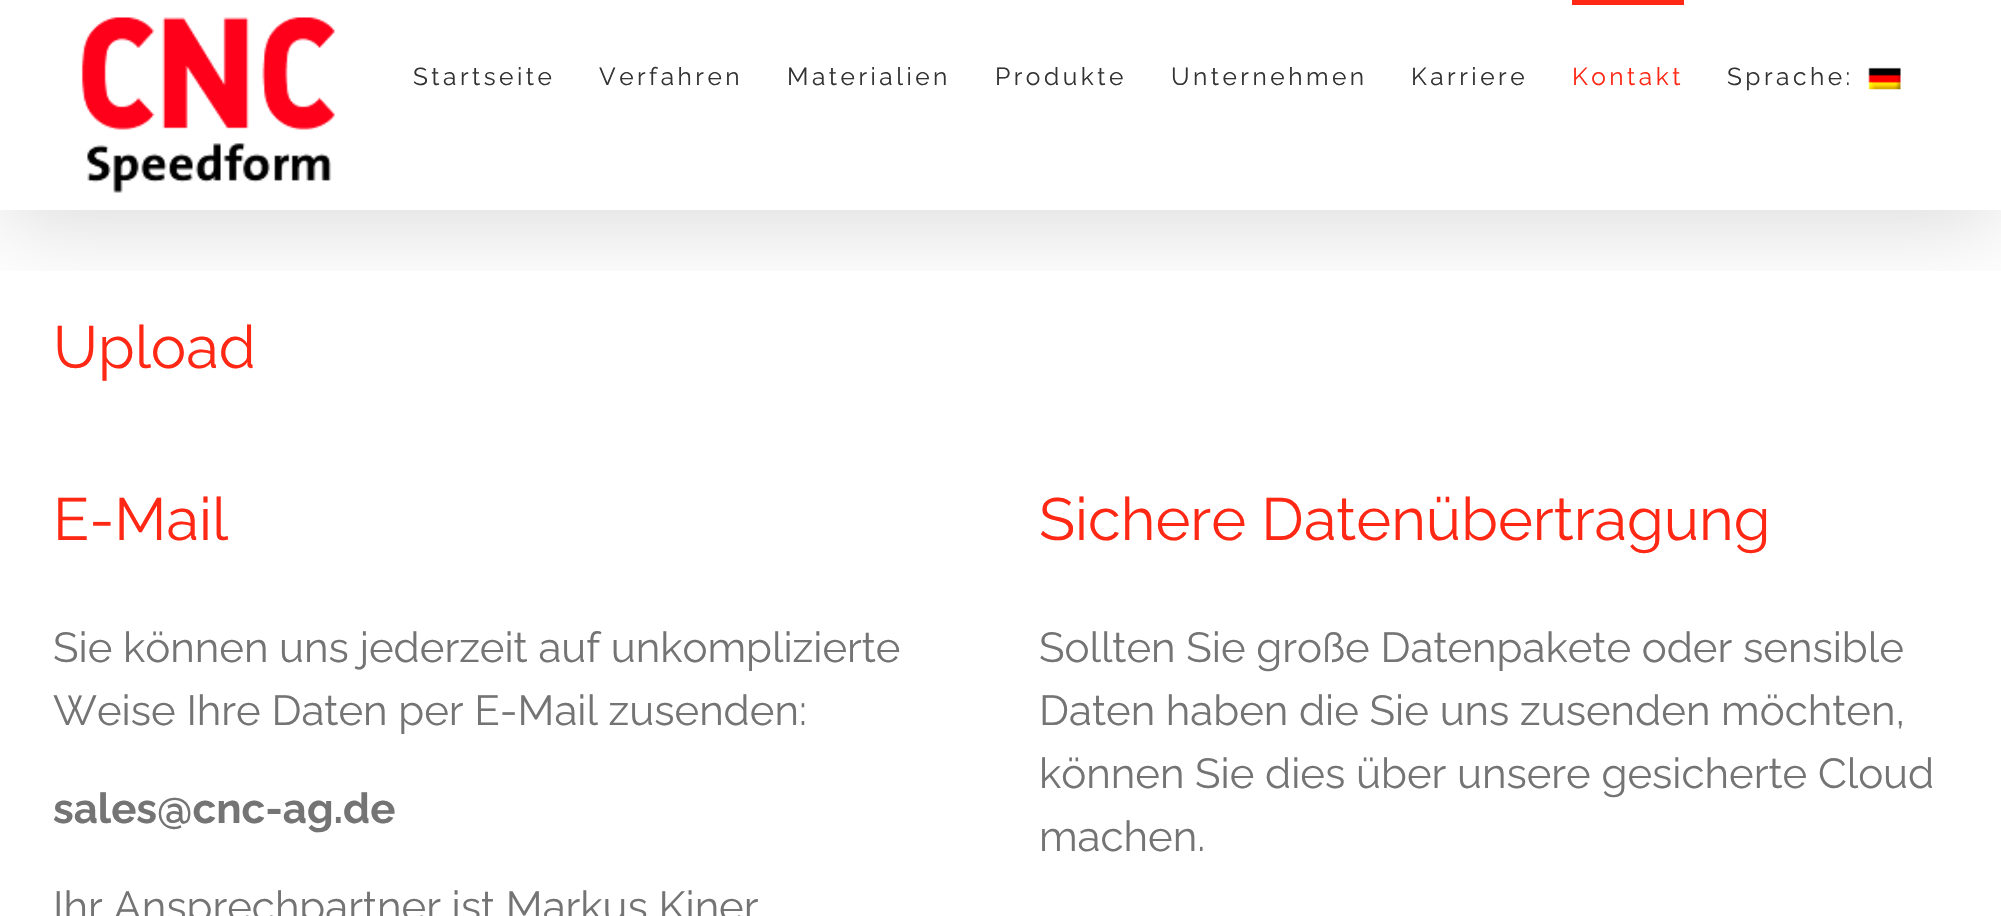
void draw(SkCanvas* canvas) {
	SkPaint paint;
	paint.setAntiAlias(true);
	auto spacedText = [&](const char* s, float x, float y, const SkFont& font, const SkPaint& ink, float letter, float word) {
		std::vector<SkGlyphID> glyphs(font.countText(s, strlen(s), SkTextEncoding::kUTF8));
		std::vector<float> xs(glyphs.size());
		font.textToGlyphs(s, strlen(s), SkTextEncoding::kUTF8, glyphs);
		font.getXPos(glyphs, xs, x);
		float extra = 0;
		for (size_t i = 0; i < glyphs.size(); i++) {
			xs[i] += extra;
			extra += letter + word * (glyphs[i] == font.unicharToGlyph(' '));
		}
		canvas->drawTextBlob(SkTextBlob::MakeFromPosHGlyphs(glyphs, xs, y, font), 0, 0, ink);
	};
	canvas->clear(0xffffffff);
	canvas->save();
	canvas->clipRect(SkRect::MakeXYWH(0, 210, 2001, 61));
	paint.setColor(0x24000000);
	paint.setMaskFilter(SkMaskFilter::MakeBlur(kNormal_SkBlurStyle, 44));
	canvas->drawRect(SkRect::MakeXYWH(4, 21, 1995, 203), paint);
	paint.setMaskFilter(nullptr);
	canvas->restore();
	canvas->drawImageRect(SkImages::DeferredFromEncodedData(SkData::MakeFromFileName("img1.png")), SkRect::MakeXYWH(81, 17, 254, 176), SkSamplingOptions());
	SkFont f1(fontMgr->matchFamilyStyle("Raleway", SkFontStyle::Normal()), 24.5);
	f1.setSubpixel(true);
	paint.setColor(0xff333333);
	spacedText("Startseite", 413, 85, f1, paint, 3.5, 0);
	spacedText("Verfahren", 599, 85, f1, paint, 3.5, 0);
	spacedText("Materialien", 787, 85, f1, paint, 3.5, 0);
	spacedText("Produkte", 995, 85, f1, paint, 3.5, 0);
	spacedText("Unternehmen", 1171, 85, f1, paint, 3.5, 0);
	spacedText("Karriere", 1411, 85, f1, paint, 3.5, 0);
	paint.setColor(0xffff2815);
	canvas->drawRect(SkRect::MakeXYWH(1572, 0, 112, 5), paint);
	spacedText("Kontakt", 1572, 85, f1, paint, 3.5, 0);
	paint.setColor(0xff333333);
	spacedText("Sprache:", 1727, 85, f1, paint, 3.5, 0);
	canvas->drawImageRect(SkImages::DeferredFromEncodedData(SkData::MakeFromFileName("img2.png")), SkRect::MakeXYWH(1868, 67, 33, 23), SkSamplingOptions());
	SkFont f2(fontMgr->matchFamilyStyle("Raleway", SkFontStyle::Normal()), 59.5);
	f2.setSubpixel(true);
	paint.setColor(0xffff2815);
	canvas->drawString("Upload", 53, 368, f2, paint);
	canvas->drawString("E-Mail", 53, 540, f2, paint);
	SkFont f3(fontMgr->matchFamilyStyle("Raleway", SkFontStyle::Normal()), 42);
	f3.setSubpixel(true);
	paint.setColor(0xff747474);
	canvas->drawString("Sie können uns jederzeit auf unkomplizierte", 53, 662, f3, paint);
	canvas->drawString("Weise Ihre Daten per E-Mail zusenden:", 53, 725, f3, paint);
	SkFont f4(fontMgr->matchFamilyStyle("Raleway", SkFontStyle::Bold()), 42);
	f4.setSubpixel(true);
	canvas->drawString("sales@cnc-ag.de", 53, 823, f4, paint);
	canvas->drawString("Ihr Ansprechpartner ist Markus Kiner", 53, 921, f3, paint);
	paint.setColor(0xffff2815);
	canvas->drawString("Sichere Datenübertragung", 1039, 540, f2, paint);
	paint.setColor(0xff747474);
	canvas->drawString("Sollten Sie große Datenpakete oder sensible", 1039, 662, f3, paint);
	canvas->drawString("Daten haben die Sie uns zusenden möchten,", 1039, 725, f3, paint);
	canvas->drawString("können Sie dies über unsere gesicherte Cloud", 1039, 788, f3, paint);
	canvas->drawString("machen.", 1039, 851, f3, paint);
}
